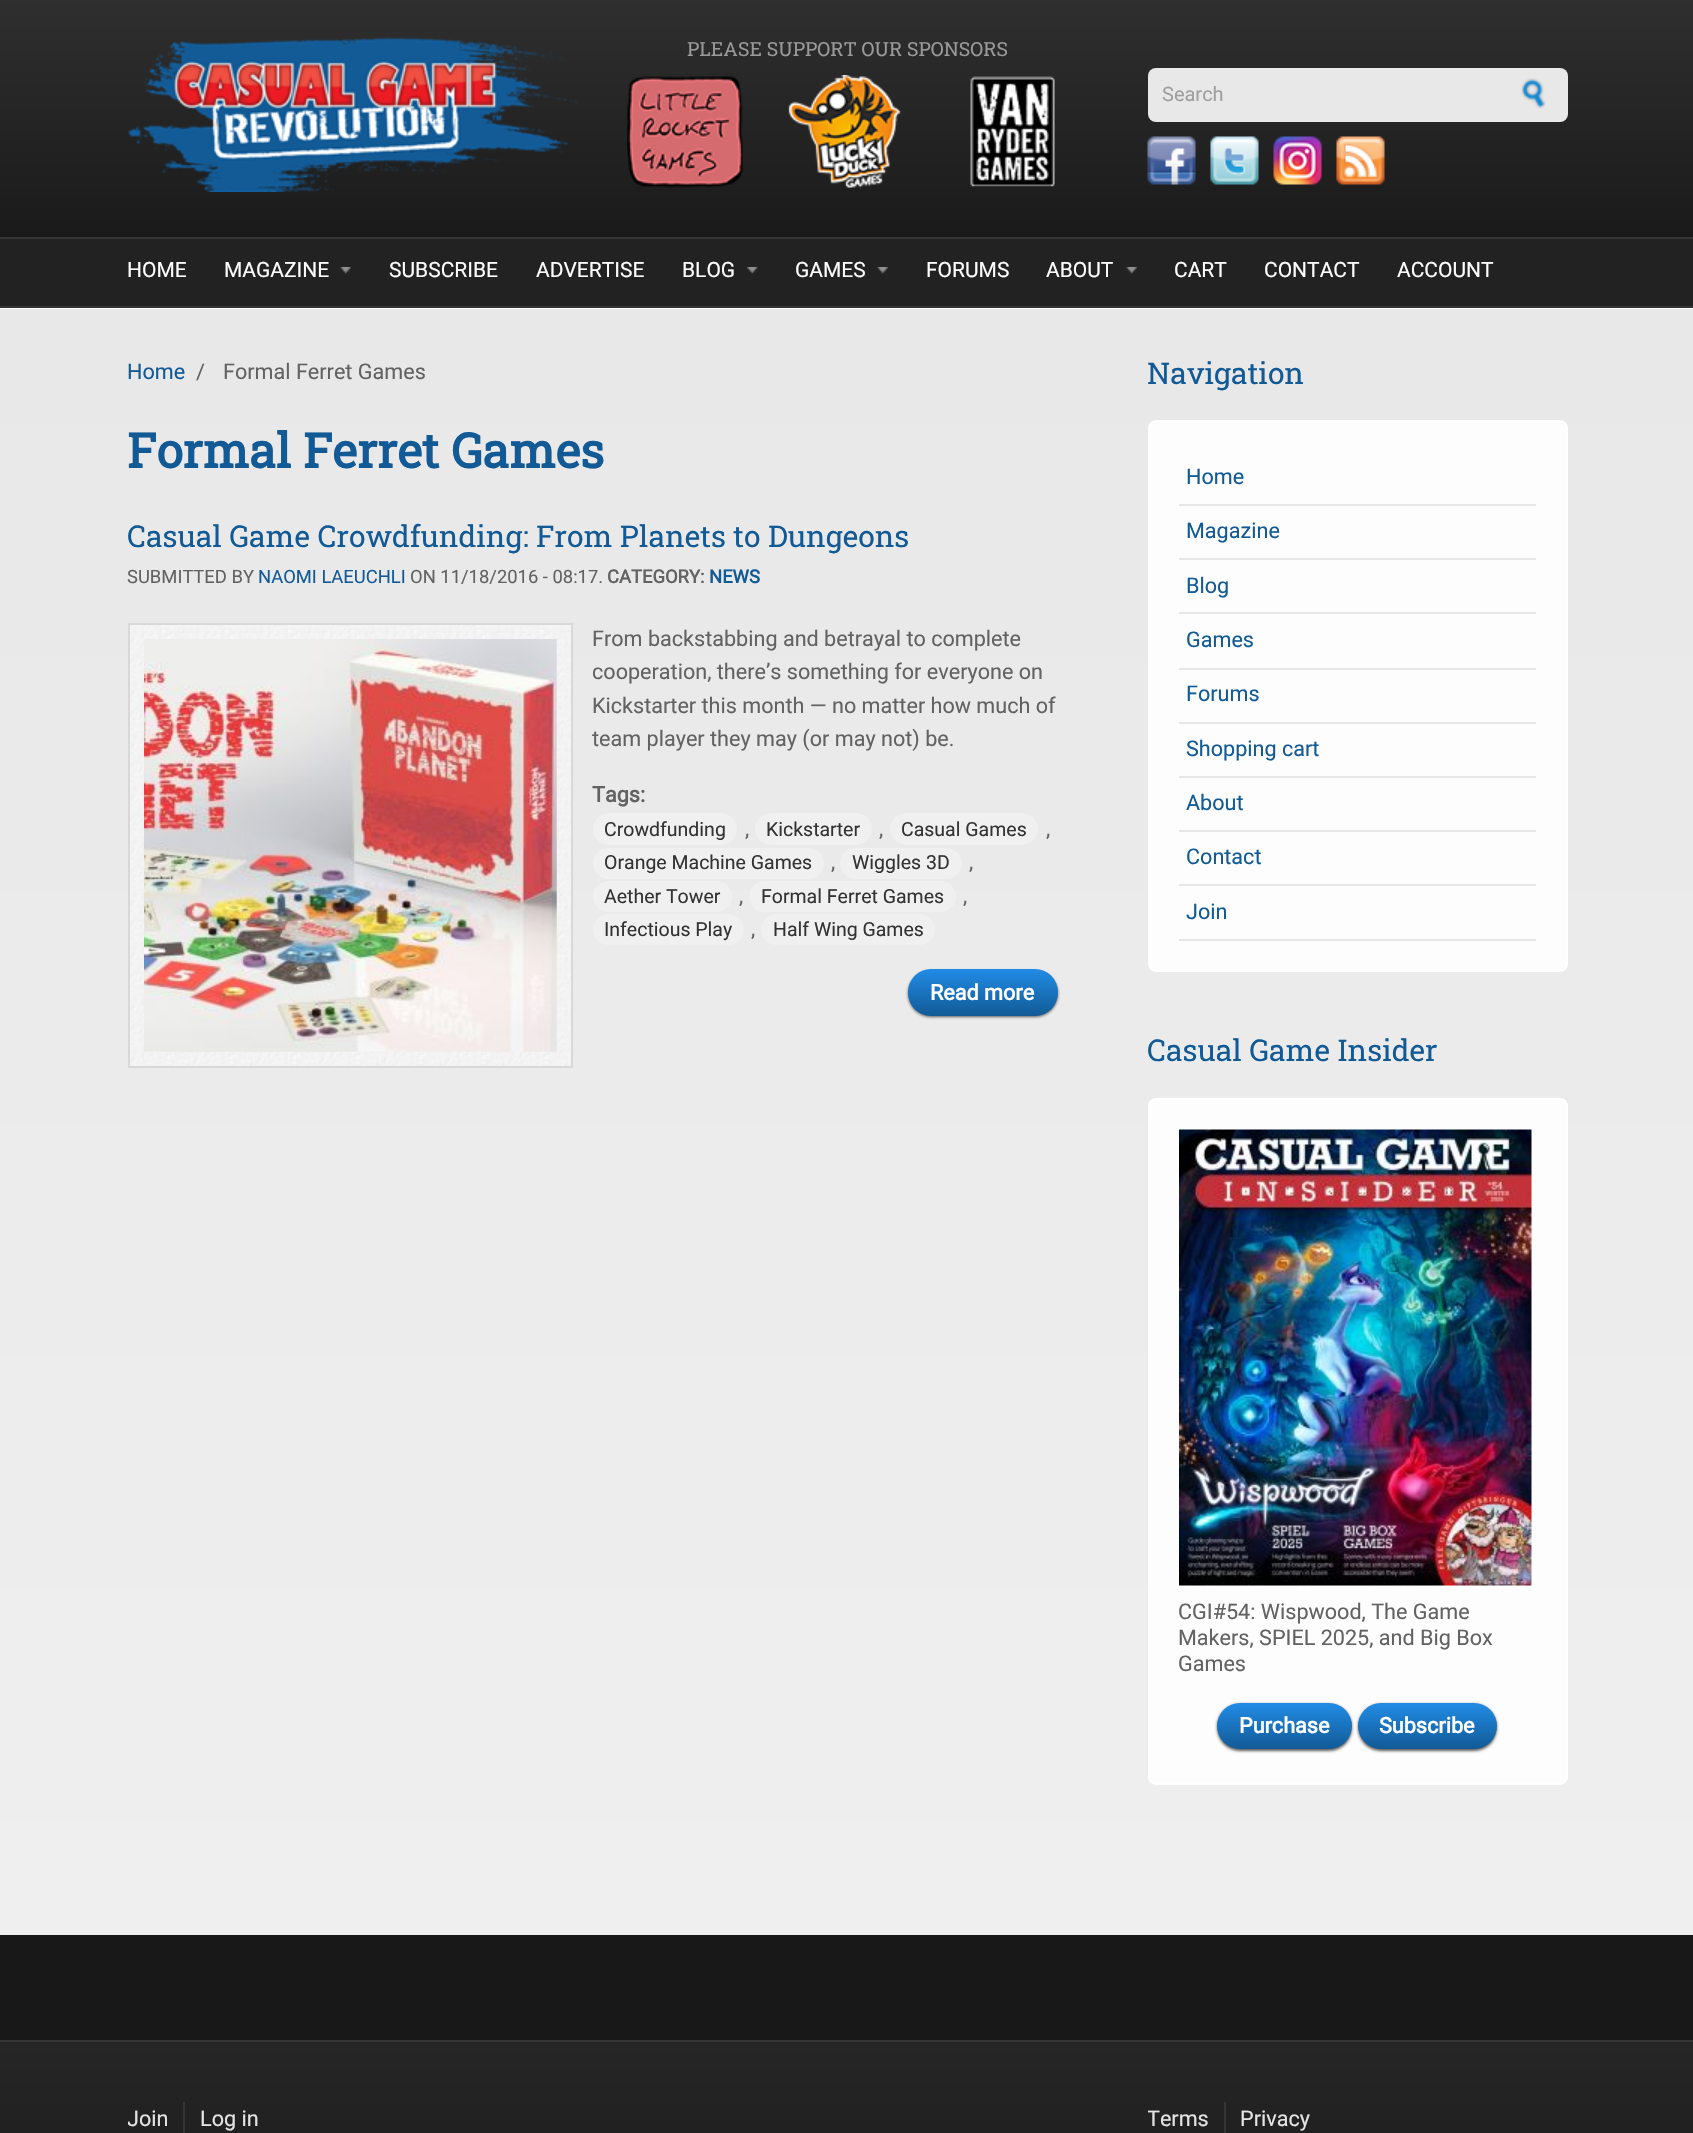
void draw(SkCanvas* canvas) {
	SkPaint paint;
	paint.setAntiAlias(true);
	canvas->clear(0xffffffff);
	{
		const SkColor colors[] = {0xff2f2f2f, 0xff1b1a1a};
		const float stops[] = {0, 1};
		const SkPoint ends[] = {{847, 0}, {847, 237}};
		paint.setShader(SkGradientShader::MakeLinear(ends, colors, stops, 2, SkTileMode::kClamp));
		paint.setAlpha(255);
	}
	canvas->drawRect(SkRect::MakeXYWH(0, 0, 1693, 237), paint);
	canvas->drawImageRect(SkImages::DeferredFromEncodedData(SkData::MakeFromFileName("img1.png")), SkRect::MakeXYWH(127, 37, 451, 155), SkSamplingOptions());
	SkFont f1(fontMgr->matchFamilyStyle("Roboto Slab", SkFontStyle::Normal()), 19.5);
	f1.setSubpixel(true);
	paint.setShader(nullptr);
	paint.setColor(0xff999999);
	canvas->drawString("PLEASE SUPPORT OUR SPONSORS", 687, 56, f1, paint);
	canvas->drawImageRect(SkImages::DeferredFromEncodedData(SkData::MakeFromFileName("img2.png")), SkRect::MakeXYWH(627, 76, 116, 112), SkSamplingOptions());
	canvas->drawImageRect(SkImages::DeferredFromEncodedData(SkData::MakeFromFileName("img3.png")), SkRect::MakeXYWH(788, 75, 113, 113), SkSamplingOptions());
	canvas->drawImageRect(SkImages::DeferredFromEncodedData(SkData::MakeFromFileName("img4.png")), SkRect::MakeXYWH(970, 76, 85, 111), SkSamplingOptions());
	paint.setColor(0xffe8e8e8);
	canvas->drawRoundRect(SkRect::MakeXYWH(1148, 68, 420, 54), 8, 8, paint);
	SkFont f2(fontMgr->matchFamilyStyle("Roboto", SkFontStyle::Normal()), 20);
	f2.setSubpixel(true);
	paint.setColor(0xff9f9f9f);
	canvas->drawString("Search", 1162, 101, f2, paint);
	canvas->drawImageRect(SkImages::DeferredFromEncodedData(SkData::MakeFromFileName("img5.png")), SkRect::MakeXYWH(1521, 78, 25, 31), SkSamplingOptions());
	canvas->drawImageRect(SkImages::DeferredFromEncodedData(SkData::MakeFromFileName("img6.png")), SkRect::MakeXYWH(1147, 136, 49, 49), SkSamplingOptions());
	canvas->drawImageRect(SkImages::DeferredFromEncodedData(SkData::MakeFromFileName("img7.png")), SkRect::MakeXYWH(1210, 136, 49, 49), SkSamplingOptions());
	canvas->drawImageRect(SkImages::DeferredFromEncodedData(SkData::MakeFromFileName("img8.png")), SkRect::MakeXYWH(1273, 136, 49, 49), SkSamplingOptions());
	canvas->drawImageRect(SkImages::DeferredFromEncodedData(SkData::MakeFromFileName("img9.png")), SkRect::MakeXYWH(1336, 136, 49, 49), SkSamplingOptions());
	paint.setColor(0xff222222);
	canvas->drawRect(SkRect::MakeXYWH(0, 239, 1693, 67), paint);
	paint.setColor(0xff353535);
	canvas->drawRect(SkRect::MakeXYWH(0, 237, 1693, 2), paint);
	canvas->drawRect(SkRect::MakeXYWH(0, 306, 1693, 2), paint);
	SkFont f3(fontMgr->matchFamilyStyle("Roboto", SkFontStyle::Normal()), 21);
	f3.setSubpixel(true);
	paint.setColor(0xfffefefe);
	canvas->drawString("HOME", 127, 277, f3, paint);
	canvas->drawImageRect(SkImages::DeferredFromEncodedData(SkData::MakeFromFileName("img10.png")), SkRect::MakeXYWH(340, 267, 11, 7), SkSamplingOptions());
	canvas->drawString("MAGAZINE", 224, 277, f3, paint);
	canvas->drawString("SUBSCRIBE", 389, 277, f3, paint);
	canvas->drawString("ADVERTISE", 536, 277, f3, paint);
	canvas->drawImageRect(SkImages::DeferredFromEncodedData(SkData::MakeFromFileName("img11.png")), SkRect::MakeXYWH(747, 267, 11, 7), SkSamplingOptions());
	canvas->drawString("BLOG", 682, 277, f3, paint);
	canvas->drawImageRect(SkImages::DeferredFromEncodedData(SkData::MakeFromFileName("img10.png")), SkRect::MakeXYWH(877, 267, 11, 7), SkSamplingOptions());
	canvas->drawString("GAMES", 795, 277, f3, paint);
	canvas->drawString("FORUMS", 926, 277, f3, paint);
	canvas->drawImageRect(SkImages::DeferredFromEncodedData(SkData::MakeFromFileName("img12.png")), SkRect::MakeXYWH(1126, 267, 11, 7), SkSamplingOptions());
	canvas->drawString("ABOUT", 1046, 277, f3, paint);
	canvas->drawString("CART", 1174, 277, f3, paint);
	canvas->drawString("CONTACT", 1264, 277, f3, paint);
	canvas->drawString("ACCOUNT", 1397, 277, f3, paint);
	paint.setColor(0xfffcfcfc);
	canvas->drawRect(SkRect::MakeXYWH(0, 308, 1693, 1), paint);
	{
		const SkColor colors[] = {0xffe8e8e8, 0xffefefef};
		const float stops[] = {0, 1};
		const SkPoint ends[] = {{847, 309}, {847, 1935}};
		paint.setShader(SkGradientShader::MakeLinear(ends, colors, stops, 2, SkTileMode::kClamp));
		paint.setAlpha(255);
	}
	canvas->drawRect(SkRect::MakeXYWH(0, 309, 1693, 1626), paint);
	SkFont f4(fontMgr->matchFamilyStyle("Roboto", SkFontStyle::Normal()), 21.6);
	f4.setSubpixel(true);
	paint.setShader(nullptr);
	paint.setColor(0xff125a96);
	canvas->drawString("Home", 127, 379, f4, paint);
	paint.setColor(0xff626262);
	canvas->drawString("/", 196, 379, f4, paint);
	canvas->drawString("Formal Ferret Games", 223, 379, f4, paint);
	SkFont f5(fontMgr->matchFamilyStyle("Roboto Slab", SkFontStyle::Bold()), 48);
	f5.setSubpixel(true);
	paint.setColor(0xff125a96);
	canvas->drawString("Formal Ferret Games", 127, 468, f5, paint);
	SkFont f6(fontMgr->matchFamilyStyle("Roboto Slab", SkFontStyle::Normal()), 30);
	f6.setSubpixel(true);
	canvas->drawString("Casual Game Crowdfunding: From Planets to Dungeons", 127, 547, f6, paint);
	SkFont f7(fontMgr->matchFamilyStyle("Roboto", SkFontStyle::Normal()), 18.4);
	f7.setSubpixel(true);
	paint.setColor(0xff626262);
	canvas->drawString("SUBMITTED BY", 127, 583, f7, paint);
	paint.setColor(0xff125a96);
	canvas->drawString("NAOMI LAEUCHLI", 258, 583, f7, paint);
	paint.setColor(0xff626262);
	canvas->drawString("ON 11/18/2016 - 08:17.", 410, 583, f7, paint);
	SkFont f8(fontMgr->matchFamilyStyle("Roboto", SkFontStyle::Bold()), 18.4);
	f8.setSubpixel(true);
	canvas->drawString("CATEGORY:", 607, 583, f8, paint);
	paint.setColor(0xff125a96);
	canvas->drawString("NEWS", 709, 583, f8, paint);
	canvas->drawImageRect(SkImages::DeferredFromEncodedData(SkData::MakeFromFileName("img13.png")), SkRect::MakeXYWH(130, 625, 441, 441), SkSamplingOptions());
	paint.setStroke(true);
	paint.setStrokeWidth(2);
	paint.setColor(0xffd8d8d8);
	canvas->drawRect(SkRect::MakeXYWH(129, 624, 443, 443), paint);
	canvas->drawImageRect(SkImages::DeferredFromEncodedData(SkData::MakeFromFileName("img14.png")), SkRect::MakeXYWH(162, 639, 395, 413), SkSamplingOptions());
	paint.setStroke(false);
	paint.setColor(0xff626262);
	canvas->drawString("From backstabbing and betrayal to complete", 592, 646, f4, paint);
	canvas->drawString("cooperation, there’s something for everyone on", 592, 679, f4, paint);
	canvas->drawString("Kickstarter this month — no matter how much of", 592, 713, f4, paint);
	canvas->drawString("team player they may (or may not) be.", 592, 746, f4, paint);
	SkFont f9(fontMgr->matchFamilyStyle("Roboto", SkFontStyle::Bold()), 21.6);
	f9.setSubpixel(true);
	canvas->drawString("Tags:", 592, 802, f9, paint);
	paint.setColor(0xfff0f0f0);
	canvas->drawRoundRect(SkRect::MakeXYWH(593, 813, 144, 32), 16, 16, paint);
	SkFont f10(fontMgr->matchFamilyStyle("Roboto", SkFontStyle::Normal()), 19.5);
	f10.setSubpixel(true);
	paint.setColor(0xff333333);
	canvas->drawString("Crowdfunding", 604, 836, f10, paint);
	paint.setColor(0xff626262);
	canvas->drawString(",", 745, 836, f4, paint);
	paint.setColor(0xfff0f0f0);
	canvas->drawRoundRect(SkRect::MakeXYWH(755, 813, 117, 32), 16, 16, paint);
	paint.setColor(0xff333333);
	canvas->drawString("Kickstarter", 766, 836, f10, paint);
	paint.setColor(0xff626262);
	canvas->drawString(",", 879, 836, f4, paint);
	paint.setColor(0xfff0f0f0);
	canvas->drawRoundRect(SkRect::MakeXYWH(890, 813, 148, 32), 16, 16, paint);
	paint.setColor(0xff333333);
	canvas->drawString("Casual Games", 901, 836, f10, paint);
	paint.setColor(0xff626262);
	canvas->drawString(",", 1046, 836, f4, paint);
	paint.setColor(0xfff0f0f0);
	canvas->drawRoundRect(SkRect::MakeXYWH(593, 848, 231, 31), 15.5, 15.5, paint);
	paint.setColor(0xff333333);
	canvas->drawString("Orange Machine Games", 604, 869, f10, paint);
	paint.setColor(0xff626262);
	canvas->drawString(",", 831, 869, f4, paint);
	paint.setColor(0xfff0f0f0);
	canvas->drawRoundRect(SkRect::MakeXYWH(840, 848, 122, 31), 15.5, 15.5, paint);
	paint.setColor(0xff333333);
	canvas->drawString("Wiggles 3D", 852, 869, f10, paint);
	paint.setColor(0xff626262);
	canvas->drawString(",", 969, 869, f4, paint);
	paint.setColor(0xfff0f0f0);
	canvas->drawRoundRect(SkRect::MakeXYWH(593, 881, 139, 31), 15.5, 15.5, paint);
	paint.setColor(0xff333333);
	canvas->drawString("Aether Tower", 604, 903, f10, paint);
	paint.setColor(0xff626262);
	canvas->drawString(",", 739, 903, f4, paint);
	paint.setColor(0xfff0f0f0);
	canvas->drawRoundRect(SkRect::MakeXYWH(749, 881, 207, 31), 15.5, 15.5, paint);
	paint.setColor(0xff333333);
	canvas->drawString("Formal Ferret Games", 761, 903, f10, paint);
	paint.setColor(0xff626262);
	canvas->drawString(",", 963, 903, f4, paint);
	paint.setColor(0xfff0f0f0);
	canvas->drawRoundRect(SkRect::MakeXYWH(593, 914, 151, 31), 15.5, 15.5, paint);
	paint.setColor(0xff333333);
	canvas->drawString("Infectious Play", 604, 936, f10, paint);
	paint.setColor(0xff626262);
	canvas->drawString(",", 751, 936, f4, paint);
	paint.setColor(0xfff0f0f0);
	canvas->drawRoundRect(SkRect::MakeXYWH(761, 914, 174, 31), 15.5, 15.5, paint);
	paint.setColor(0xff333333);
	canvas->drawString("Half Wing Games", 773, 936, f10, paint);
	paint.setColor(0xff5d5d5d);
	paint.setMaskFilter(SkMaskFilter::MakeBlur(kNormal_SkBlurStyle, 1.5));
	canvas->drawRoundRect(SkRect::MakeXYWH(908, 971, 150, 46), 23, 23, paint);
	paint.setMaskFilter(nullptr);
	{
		const SkColor colors[] = {0xff218ce6, 0xff125a96};
		const float stops[] = {0, 1};
		const SkPoint ends[] = {{983, 969}, {983, 1016}};
		paint.setShader(SkGradientShader::MakeLinear(ends, colors, stops, 2, SkTileMode::kClamp));
		paint.setAlpha(255);
	}
	canvas->drawRoundRect(SkRect::MakeXYWH(908, 969, 150, 47), 23, 23, paint);
	paint.setShader(nullptr);
	paint.setColor(0xfffefefe);
	canvas->drawString("Read more", 930, 1000, f9, paint);
	paint.setColor(0xff125a96);
	canvas->drawString("Navigation", 1147, 384, f6, paint);
	paint.setColor(0xfffdfdfd);
	canvas->drawRoundRect(SkRect::MakeXYWH(1149, 421, 418, 550), 7, 7, paint);
	paint.setStroke(true);
	paint.setColor(0xffffffff);
	canvas->drawRoundRect(SkRect::MakeXYWH(1149, 421, 418, 550), 7, 7, paint);
	paint.setStroke(false);
	paint.setColor(0xffe7e7e7);
	canvas->drawRect(SkRect::MakeXYWH(1179, 504, 357, 2), paint);
	paint.setColor(0xff125a96);
	canvas->drawString("Home", 1186, 484, f4, paint);
	paint.setColor(0xffe7e7e7);
	canvas->drawRect(SkRect::MakeXYWH(1179, 558, 357, 2), paint);
	paint.setColor(0xff125a96);
	canvas->drawString("Magazine", 1186, 538, f4, paint);
	paint.setColor(0xffe7e7e7);
	canvas->drawRect(SkRect::MakeXYWH(1179, 612, 357, 2), paint);
	paint.setColor(0xff125a96);
	canvas->drawString("Blog", 1186, 593, f4, paint);
	paint.setColor(0xffe7e7e7);
	canvas->drawRect(SkRect::MakeXYWH(1179, 668, 357, 2), paint);
	paint.setColor(0xff125a96);
	canvas->drawString("Games", 1186, 647, f4, paint);
	paint.setColor(0xffe7e7e7);
	canvas->drawRect(SkRect::MakeXYWH(1179, 722, 357, 2), paint);
	paint.setColor(0xff125a96);
	canvas->drawString("Forums", 1186, 701, f4, paint);
	paint.setColor(0xffe7e7e7);
	canvas->drawRect(SkRect::MakeXYWH(1179, 776, 357, 2), paint);
	paint.setColor(0xff125a96);
	canvas->drawString("Shopping cart", 1186, 756, f4, paint);
	paint.setColor(0xffe7e7e7);
	canvas->drawRect(SkRect::MakeXYWH(1179, 830, 357, 2), paint);
	paint.setColor(0xff125a96);
	canvas->drawString("About", 1186, 810, f4, paint);
	paint.setColor(0xffe7e7e7);
	canvas->drawRect(SkRect::MakeXYWH(1179, 884, 357, 2), paint);
	paint.setColor(0xff125a96);
	canvas->drawString("Contact", 1186, 864, f4, paint);
	paint.setColor(0xffe7e7e7);
	canvas->drawRect(SkRect::MakeXYWH(1179, 939, 357, 2), paint);
	paint.setColor(0xff125a96);
	canvas->drawString("Join", 1186, 919, f4, paint);
	canvas->drawString("Casual Game Insider", 1147, 1061, f6, paint);
	paint.setColor(0xfffdfdfd);
	canvas->drawRoundRect(SkRect::MakeXYWH(1149, 1099, 418, 685), 7, 7, paint);
	paint.setStroke(true);
	paint.setColor(0xffffffff);
	canvas->drawRoundRect(SkRect::MakeXYWH(1149, 1099, 418, 685), 7, 7, paint);
	canvas->drawImageRect(SkImages::DeferredFromEncodedData(SkData::MakeFromFileName("img15.png")), SkRect::MakeXYWH(1179, 1129, 353, 457), SkSamplingOptions());
	paint.setStroke(false);
	paint.setColor(0xff626262);
	canvas->drawString("CGI#54: Wispwood, The Game", 1178, 1619, f4, paint);
	canvas->drawString("Makers, SPIEL 2025, and Big Box", 1178, 1645, f4, paint);
	canvas->drawString("Games", 1178, 1671, f4, paint);
	paint.setColor(0xff5d5d5d);
	paint.setMaskFilter(SkMaskFilter::MakeBlur(kNormal_SkBlurStyle, 1.5));
	canvas->drawRoundRect(SkRect::MakeXYWH(1217, 1704, 135, 47), 23, 23, paint);
	paint.setMaskFilter(nullptr);
	{
		const SkColor colors[] = {0xff218ce6, 0xff125a96};
		const float stops[] = {0, 1};
		const SkPoint ends[] = {{1284, 1703}, {1284, 1749}};
		paint.setShader(SkGradientShader::MakeLinear(ends, colors, stops, 2, SkTileMode::kClamp));
		paint.setAlpha(255);
	}
	canvas->drawRoundRect(SkRect::MakeXYWH(1217, 1703, 135, 46), 23, 23, paint);
	paint.setShader(nullptr);
	paint.setColor(0xfffefefe);
	canvas->drawString("Purchase", 1239, 1733, f9, paint);
	paint.setColor(0xff5d5d5d);
	paint.setMaskFilter(SkMaskFilter::MakeBlur(kNormal_SkBlurStyle, 1.5));
	canvas->drawRoundRect(SkRect::MakeXYWH(1358, 1704, 139, 47), 23, 23, paint);
	paint.setMaskFilter(nullptr);
	{
		const SkColor colors[] = {0xff218ce6, 0xff125a96};
		const float stops[] = {0, 1};
		const SkPoint ends[] = {{1427, 1703}, {1427, 1749}};
		paint.setShader(SkGradientShader::MakeLinear(ends, colors, stops, 2, SkTileMode::kClamp));
		paint.setAlpha(255);
	}
	canvas->drawRoundRect(SkRect::MakeXYWH(1358, 1703, 139, 46), 23, 23, paint);
	paint.setShader(nullptr);
	paint.setColor(0xfffefefe);
	canvas->drawString("Subscribe", 1379, 1733, f9, paint);
	paint.setColor(0xff181818);
	canvas->drawRect(SkRect::MakeXYWH(0, 1935, 1693, 105), paint);
	{
		const SkColor colors[] = {0xff262626, 0xff1a1a1a};
		const float stops[] = {0, 1};
		const SkPoint ends[] = {{847, 2042}, {847, 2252}};
		paint.setShader(SkGradientShader::MakeLinear(ends, colors, stops, 2, SkTileMode::kClamp));
		paint.setAlpha(255);
	}
	canvas->drawRect(SkRect::MakeXYWH(0, 2042, 1693, 91), paint);
	paint.setShader(nullptr);
	paint.setColor(0xff353535);
	canvas->drawRect(SkRect::MakeXYWH(0, 2040, 1693, 2), paint);
	canvas->drawRect(SkRect::MakeXYWH(183, 2102, 2, 31), paint);
	canvas->save();
	canvas->clipRect(SkRect::MakeXYWH(128, 2102, 55, 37));
	paint.setColor(0xffe4e4e4);
	canvas->drawString("Join", 127, 2126, f4, paint);
	canvas->restore();
	canvas->drawString("Log in", 200, 2126, f4, paint);
	paint.setColor(0xff353535);
	canvas->drawRect(SkRect::MakeXYWH(1224, 2102, 2, 31), paint);
	canvas->save();
	canvas->clipRect(SkRect::MakeXYWH(1148, 2102, 76, 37));
	paint.setColor(0xffe4e4e4);
	canvas->drawString("Terms", 1147, 2126, f4, paint);
	canvas->restore();
	canvas->drawString("Privacy", 1240, 2126, f4, paint);
}
